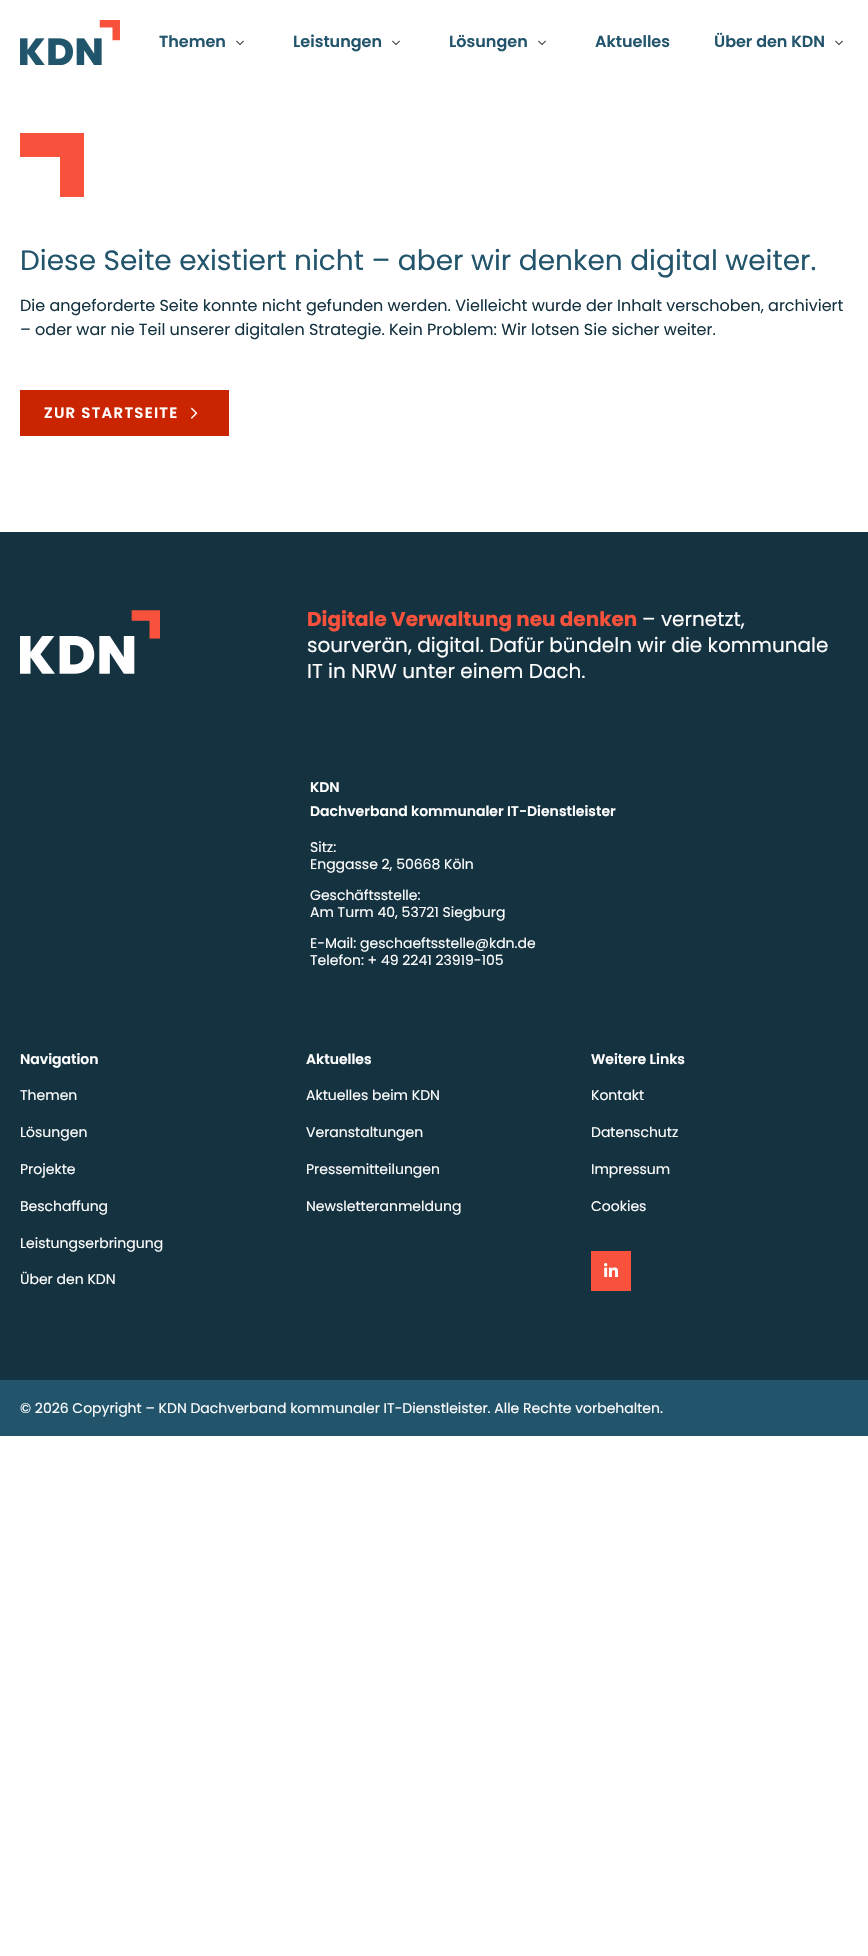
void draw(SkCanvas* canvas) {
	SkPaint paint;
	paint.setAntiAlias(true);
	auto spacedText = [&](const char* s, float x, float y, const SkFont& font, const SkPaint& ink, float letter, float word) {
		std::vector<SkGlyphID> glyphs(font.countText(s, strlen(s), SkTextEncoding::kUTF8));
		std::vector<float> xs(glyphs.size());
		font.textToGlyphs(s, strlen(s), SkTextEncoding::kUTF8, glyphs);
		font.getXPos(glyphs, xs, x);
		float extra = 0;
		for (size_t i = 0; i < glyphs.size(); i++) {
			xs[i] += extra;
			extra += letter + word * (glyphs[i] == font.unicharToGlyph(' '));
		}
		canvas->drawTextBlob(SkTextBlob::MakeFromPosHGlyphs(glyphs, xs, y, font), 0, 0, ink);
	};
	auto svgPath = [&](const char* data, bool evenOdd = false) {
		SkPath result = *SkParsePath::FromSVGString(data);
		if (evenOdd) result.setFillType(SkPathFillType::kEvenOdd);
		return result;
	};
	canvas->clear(0xffffffff);
	canvas->drawImageRect(SkImages::DeferredFromEncodedData(SkData::MakeFromFileName("img1.png")), SkRect::MakeXYWH(20, 20, 100, 45), SkSamplingOptions());
	SkFont f1(fontMgr->matchFamilyStyle("Poppins", SkFontStyle(600, SkFontStyle::kNormal_Width, SkFontStyle::kUpright_Slant)), 16);
	f1.setSubpixel(true);
	paint.setColor(0xff22546b);
	canvas->drawString("Themen", 159, 47, f1, paint);
	canvas->drawImageRect(SkImages::DeferredFromEncodedData(SkData::MakeFromFileName("img2.png")), SkRect::MakeXYWH(236, 40, 8, 6), SkSamplingOptions());
	canvas->drawString("Leistungen", 293, 47, f1, paint);
	canvas->drawImageRect(SkImages::DeferredFromEncodedData(SkData::MakeFromFileName("img2.png")), SkRect::MakeXYWH(392, 40, 8, 6), SkSamplingOptions());
	canvas->drawString("Lösungen", 449, 47, f1, paint);
	canvas->drawImageRect(SkImages::DeferredFromEncodedData(SkData::MakeFromFileName("img2.png")), SkRect::MakeXYWH(538, 40, 8, 6), SkSamplingOptions());
	canvas->drawString("Aktuelles", 595, 47, f1, paint);
	canvas->drawString("Über den KDN", 714, 47, f1, paint);
	canvas->drawImageRect(SkImages::DeferredFromEncodedData(SkData::MakeFromFileName("img2.png")), SkRect::MakeXYWH(835, 40, 8, 6), SkSamplingOptions());
	paint.setColor(0xfff8523c);
	canvas->drawPath(svgPath("M20 133V157H60V197H84V133Z"), paint);
	SkFont f2(fontMgr->matchFamilyStyle("Poppins", SkFontStyle::Normal()), 28);
	f2.setSubpixel(true);
	paint.setColor(0xff22546b);
	canvas->drawString("Diese Seite existiert nicht – aber wir denken digital weiter.", 20, 270, f2, paint);
	SkFont f3(fontMgr->matchFamilyStyle("Poppins", SkFontStyle::Normal()), 16);
	f3.setSubpixel(true);
	paint.setColor(0xff153240);
	canvas->drawString("Die angeforderte Seite konnte nicht gefunden werden. Vielleicht wurde der Inhalt verschoben, archiviert", 20, 311, f3, paint);
	canvas->drawString("– oder war nie Teil unserer digitalen Strategie. Kein Problem: Wir lotsen Sie sicher weiter.", 20, 335, f3, paint);
	paint.setColor(0xffcb2400);
	canvas->drawRect(SkRect::MakeXYWH(20, 390, 209, 46), paint);
	SkFont f4(fontMgr->matchFamilyStyle("Poppins", SkFontStyle(600, SkFontStyle::kNormal_Width, SkFontStyle::kUpright_Slant)), 15);
	f4.setSubpixel(true);
	paint.setColor(0xffffffff);
	spacedText("ZUR STARTSEITE", 44, 418, f4, paint, 1.25, 0);
	canvas->drawImageRect(SkImages::DeferredFromEncodedData(SkData::MakeFromFileName("img3.png")), SkRect::MakeXYWH(190, 407, 8, 12), SkSamplingOptions());
	paint.setColor(0xff153240);
	canvas->drawRect(SkRect::MakeXYWH(0, 532, 868, 848), paint);
	canvas->drawImageRect(SkImages::DeferredFromEncodedData(SkData::MakeFromFileName("img4.png")), SkRect::MakeXYWH(20, 610, 140, 64), SkSamplingOptions());
	SkFont f5(fontMgr->matchFamilyStyle("Poppins", SkFontStyle::Bold()), 20);
	f5.setSubpixel(true);
	paint.setColor(0xfff8523c);
	canvas->drawString("Digitale Verwaltung neu denken", 307, 626, f5, paint);
	SkFont f6(fontMgr->matchFamilyStyle("Poppins", SkFontStyle::Normal()), 20);
	f6.setSubpixel(true);
	paint.setColor(0xffffffff);
	canvas->drawString("– vernetzt,", 642, 626, f6, paint);
	canvas->drawString("sourverän, digital. Dafür bündeln wir die kommunale", 307, 652, f6, paint);
	canvas->drawString("IT in NRW unter einem Dach.", 307, 678, f6, paint);
	SkFont f7(fontMgr->matchFamilyStyle("Poppins", SkFontStyle(600, SkFontStyle::kNormal_Width, SkFontStyle::kUpright_Slant)), 14);
	f7.setSubpixel(true);
	canvas->drawString("KDN", 310, 792, f7, paint);
	canvas->drawString("Dachverband kommunaler IT-Dienstleister", 310, 816, f7, paint);
	SkFont f8(fontMgr->matchFamilyStyle("Poppins", SkFontStyle::Normal()), 14);
	f8.setSubpixel(true);
	canvas->drawString("Sitz:", 310, 852, f8, paint);
	canvas->drawString("Enggasse 2, 50668 Köln", 310, 869, f8, paint);
	canvas->drawString("Geschäftsstelle:", 310, 900, f8, paint);
	canvas->drawString("Am Turm 40, 53721 Siegburg", 310, 917, f8, paint);
	canvas->drawString("E-Mail: geschaeftsstelle@kdn.de", 310, 948, f8, paint);
	canvas->drawString("Telefon: + 49 2241 23919-105", 310, 965, f8, paint);
	canvas->drawString("Navigation", 20, 1064, f7, paint);
	canvas->drawString("Themen", 20, 1100, f8, paint);
	canvas->drawString("Lösungen", 20, 1137, f8, paint);
	canvas->drawString("Projekte", 20, 1174, f8, paint);
	canvas->drawString("Beschaffung", 20, 1211, f8, paint);
	canvas->drawString("Leistungserbringung", 20, 1248, f8, paint);
	canvas->drawString("Über den KDN", 20, 1284, f8, paint);
	canvas->drawString("Aktuelles", 306, 1064, f7, paint);
	canvas->drawString("Aktuelles beim KDN", 306, 1100, f8, paint);
	canvas->drawString("Veranstaltungen", 306, 1137, f8, paint);
	canvas->drawString("Pressemitteilungen", 306, 1174, f8, paint);
	canvas->drawString("Newsletteranmeldung", 306, 1211, f8, paint);
	canvas->drawString("Weitere Links", 591, 1064, f7, paint);
	canvas->drawString("Kontakt", 591, 1100, f8, paint);
	canvas->drawString("Datenschutz", 591, 1137, f8, paint);
	canvas->drawString("Impressum", 591, 1174, f8, paint);
	canvas->drawString("Cookies", 591, 1211, f8, paint);
	paint.setColor(0xfff8523c);
	canvas->drawRect(SkRect::MakeXYWH(591, 1251, 40, 40), paint);
	canvas->drawImageRect(SkImages::DeferredFromEncodedData(SkData::MakeFromFileName("img5.png")), SkRect::MakeXYWH(604, 1263, 14, 14), SkSamplingOptions());
	paint.setColor(0xff22546b);
	canvas->drawRect(SkRect::MakeXYWH(0, 1380, 868, 56), paint);
	paint.setColor(0xffffffff);
	canvas->drawString("© 2026 Copyright – KDN Dachverband kommunaler IT-Dienstleister. Alle Rechte vorbehalten.", 20, 1413, f8, paint);
}
